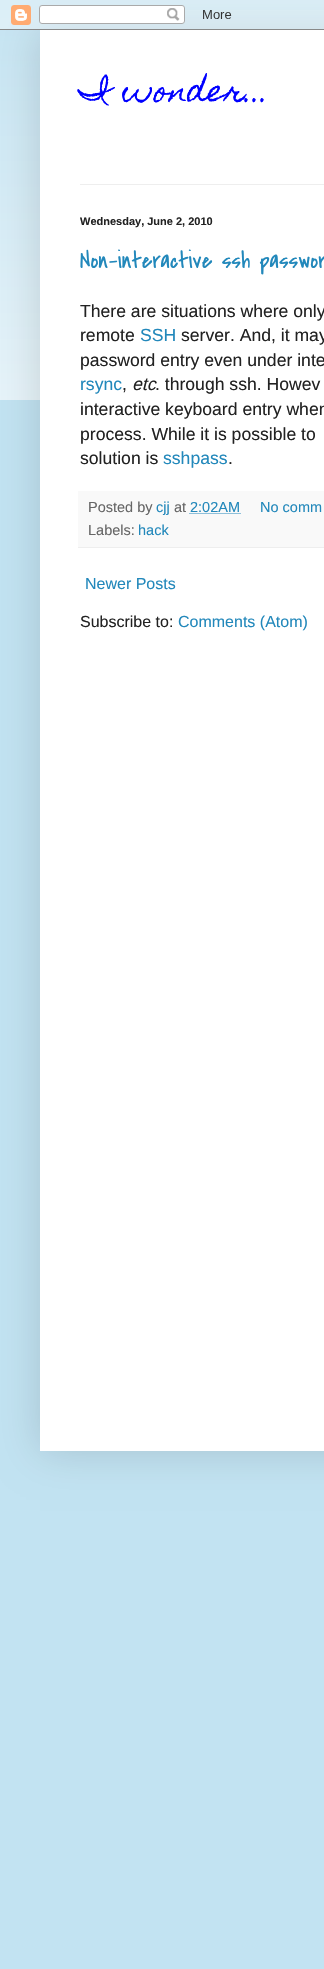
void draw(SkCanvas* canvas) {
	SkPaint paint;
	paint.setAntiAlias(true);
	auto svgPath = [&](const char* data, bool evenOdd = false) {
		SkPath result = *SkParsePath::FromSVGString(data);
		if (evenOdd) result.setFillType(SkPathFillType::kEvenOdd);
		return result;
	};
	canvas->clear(0xffc2e3f2);
	canvas->drawImageRect(SkImages::DeferredFromEncodedData(SkData::MakeFromFileName("img2.png")), SkRect::MakeXYWH(0, 10, 324, 390), SkSamplingOptions());
	paint.setColor(0x26000000);
	paint.setMaskFilter(SkMaskFilter::MakeBlur(kNormal_SkBlurStyle, 20));
	canvas->drawRect(SkRect::MakeXYWH(40, 30, 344, 1421), paint);
	paint.setMaskFilter(nullptr);
	canvas->drawImageRect(SkImages::DeferredFromEncodedData(SkData::MakeFromFileName("img1.png")), SkRect::MakeXYWH(0, 0, 324, 30), SkSamplingOptions());
	paint.setColor(0xffffffff);
	canvas->drawRect(SkRect::MakeXYWH(40, 30, 284, 1421), paint);
	SkFont f1(fontMgr->matchFamilyStyle("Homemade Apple", SkFontStyle::Normal()), 30);
	f1.setSubpixel(true);
	paint.setColor(0xff0000ff);
	canvas->drawString("I wonder...", 80, 101, f1, paint);
	paint.setColor(0xffeeeeee);
	canvas->drawRect(SkRect::MakeXYWH(80, 184, 244, 1), paint);
	SkFont f2(fontMgr->matchFamilyStyle("Liberation Sans", SkFontStyle::Bold()), 11);
	f2.setSubpixel(true);
	paint.setColor(0xff222222);
	canvas->drawString("Wednesday, June 2, 2010", 80, 225, f2, paint);
	SkFont f3(fontMgr->matchFamilyStyle("Covered By Your Grace", SkFontStyle::Normal()), 24);
	f3.setSubpixel(true);
	paint.setColor(0xff2288bb);
	canvas->drawString("Non-interactive ssh passwor", 80, 268, f3, paint);
	SkFont f4(fontMgr->matchFamilyStyle("Arimo", SkFontStyle::Normal()), 17.6);
	f4.setSubpixel(true);
	paint.setColor(0xff222222);
	canvas->drawString("There are situations where only", 80, 317, f4, paint);
	canvas->drawString("remote", 80, 341, f4, paint);
	paint.setColor(0xff2288bb);
	canvas->drawString("SSH", 140, 341, f4, paint);
	paint.setColor(0xff222222);
	canvas->drawString("server. And, it may", 181, 341, f4, paint);
	canvas->drawString("password entry even under inte", 80, 366, f4, paint);
	paint.setColor(0xff2288bb);
	canvas->drawString("rsync", 80, 390, f4, paint);
	paint.setColor(0xff222222);
	canvas->drawString(",", 122, 390, f4, paint);
	SkFont f5(fontMgr->matchFamilyStyle("Arimo", SkFontStyle::Italic()), 17.6);
	f5.setSubpixel(true);
	canvas->drawString("etc", 132, 390, f5, paint);
	canvas->drawString(". through ssh. Howev", 155, 390, f4, paint);
	canvas->drawString("interactive keyboard entry when", 80, 415, f4, paint);
	canvas->drawString("process. While it is possible to", 80, 440, f4, paint);
	canvas->drawString("solution is", 80, 464, f4, paint);
	paint.setColor(0xff2288bb);
	canvas->drawString("sshpass", 163, 464, f4, paint);
	paint.setColor(0xff222222);
	canvas->drawString(".", 228, 464, f4, paint);
	paint.setColor(0xfff9f9f9);
	canvas->drawRect(SkRect::MakeXYWH(78, 491, 246, 56), paint);
	paint.setColor(0xffeeeeee);
	canvas->drawRect(SkRect::MakeXYWH(78, 547, 246, 1), paint);
	SkFont f6(fontMgr->matchFamilyStyle("Arimo", SkFontStyle::Normal()), 14.5);
	f6.setSubpixel(true);
	paint.setColor(0xff666666);
	canvas->drawString("Posted by", 88, 512, f6, paint);
	paint.setColor(0xff2288bb);
	canvas->drawString("cjj", 156, 512, f6, paint);
	paint.setColor(0xff666666);
	canvas->drawString("at", 174, 512, f6, paint);
	paint.setColor(0xff2288bb);
	canvas->drawString("2:02 AM", 190, 512, f6, paint);
	paint.setStroke(true);
	paint.setStrokeWidth(1);
	paint.setPathEffect(SkDashPathEffect::Make({{1, 1}}, 0));
	canvas->drawPath(svgPath("M189.5 513.5H241"), paint);
	paint.setPathEffect(nullptr);
	paint.setStroke(false);
	canvas->drawString("No comm", 260, 512, f6, paint);
	paint.setColor(0xff666666);
	canvas->drawString("Labels:", 88, 535, f6, paint);
	paint.setColor(0xff2288bb);
	canvas->drawString("hack", 138, 535, f6, paint);
	SkFont f7(fontMgr->matchFamilyStyle("Arimo", SkFontStyle::Normal()), 16);
	f7.setSubpixel(true);
	canvas->drawString("Newer Posts", 85, 589, f7, paint);
	paint.setColor(0xff222222);
	canvas->drawString("Subscribe to:", 80, 627, f7, paint);
	paint.setColor(0xff2288bb);
	canvas->drawString("Comments (Atom)", 178, 627, f7, paint);
}
